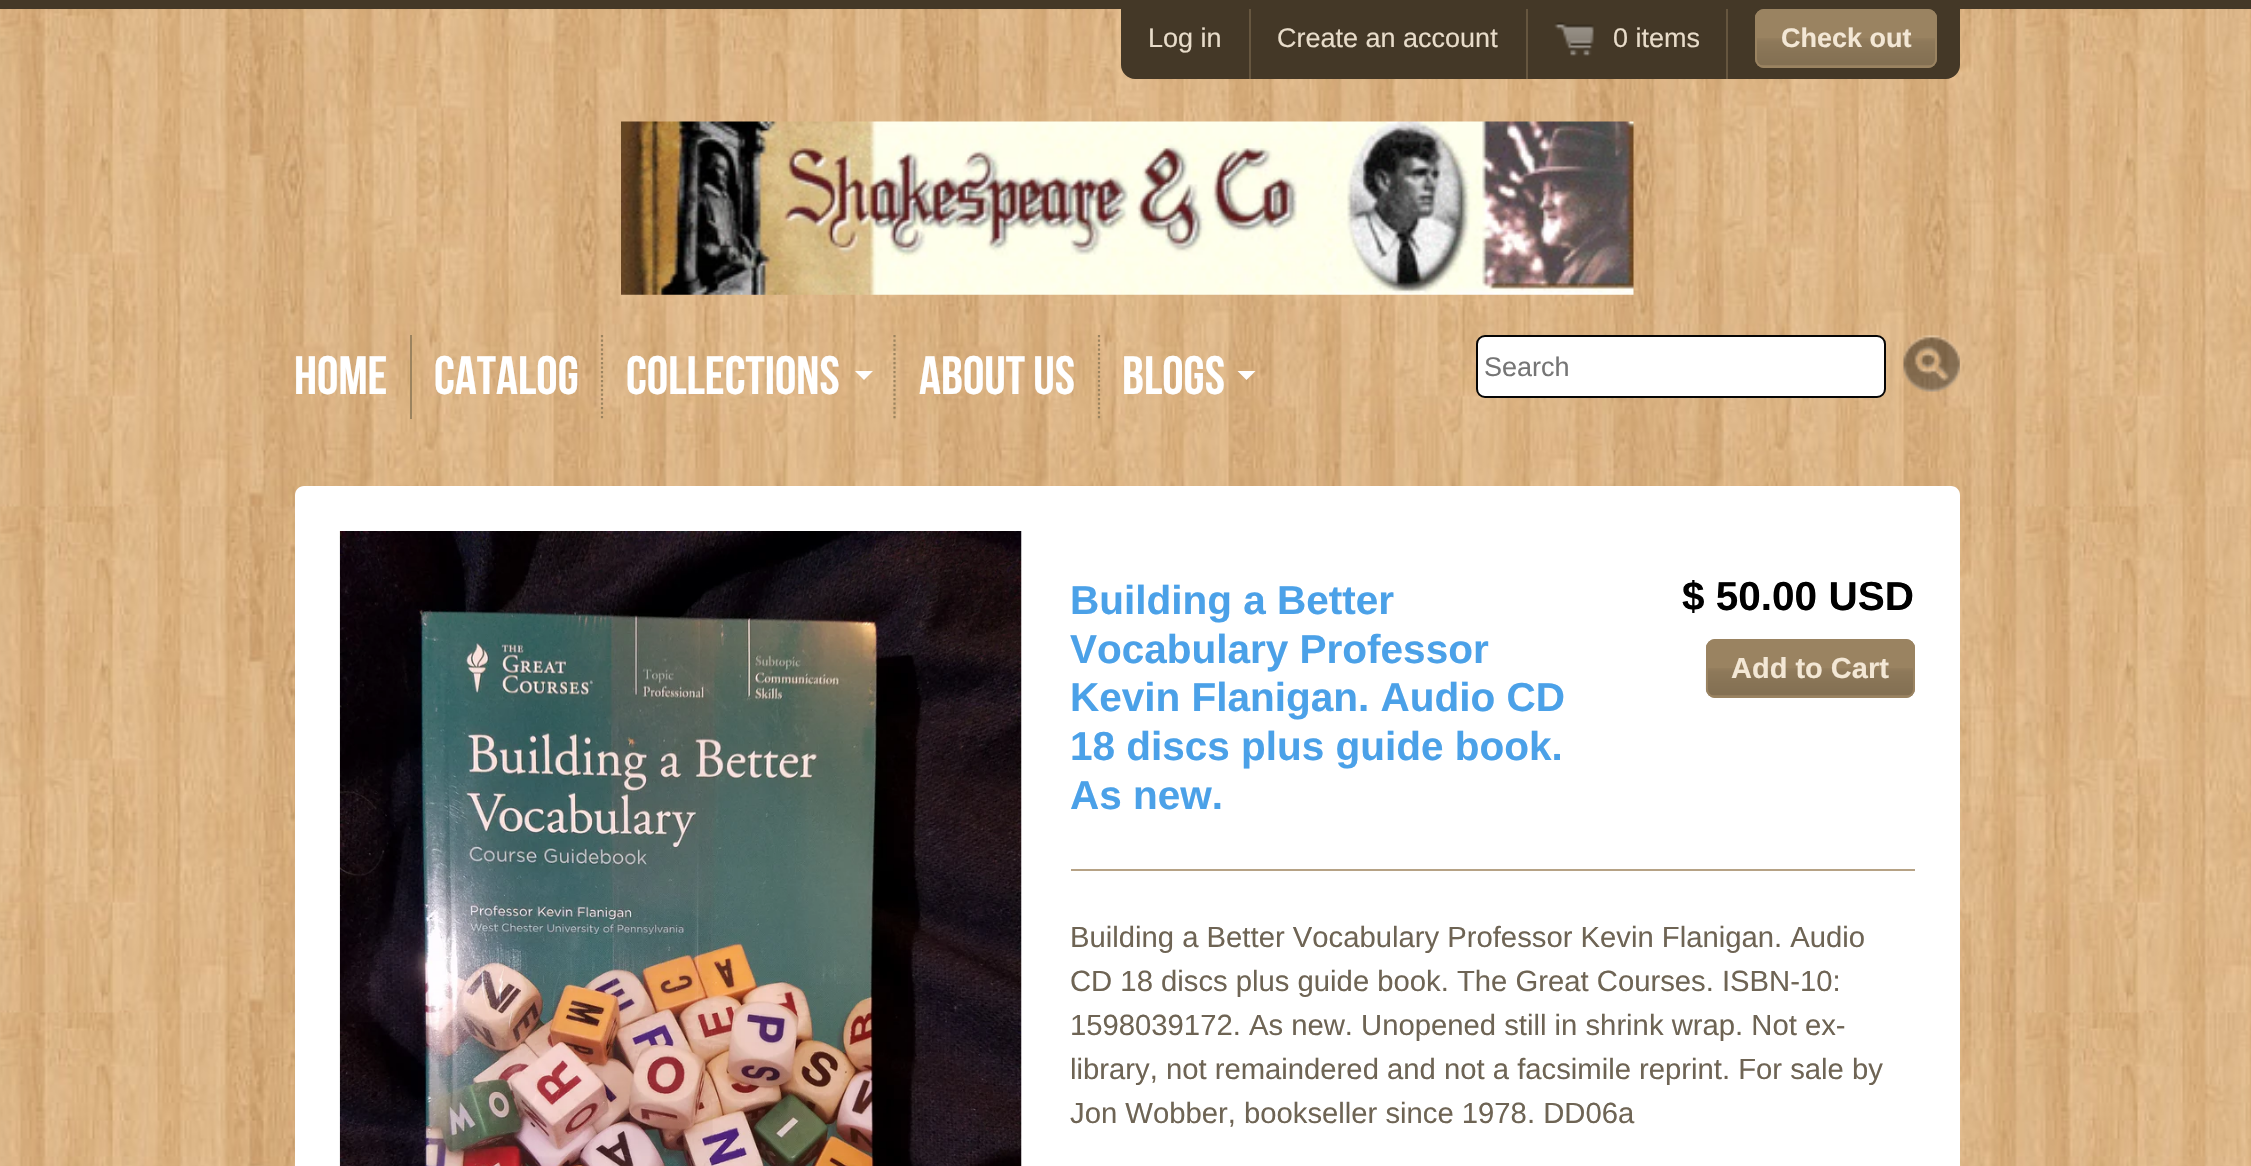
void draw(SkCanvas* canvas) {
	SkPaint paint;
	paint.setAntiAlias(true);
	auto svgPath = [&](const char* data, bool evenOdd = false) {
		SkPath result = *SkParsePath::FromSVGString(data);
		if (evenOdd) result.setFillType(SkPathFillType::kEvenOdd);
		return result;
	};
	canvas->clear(0xffffffff);
	canvas->drawImageRect(SkImages::DeferredFromEncodedData(SkData::MakeFromFileName("img1.png")), SkRect::MakeXYWH(0, 9, 2251, 1157), SkSamplingOptions());
	paint.setColor(0xff443827);
	canvas->drawRect(SkRect::MakeXYWH(0, 0, 2251, 9), paint);
	canvas->drawPath(svgPath("M1121 9H1960V65C1960 72.5 1953.5 79 1946 79H1135C1127.5 79 1121 72.5 1121 65Z"), paint);
	paint.setColor(0xff66563f);
	canvas->drawRect(SkRect::MakeXYWH(1249, 9, 2, 70), paint);
	SkFont f1(fontMgr->matchFamilyStyle("Liberation Sans", SkFontStyle::Normal()), 27);
	f1.setSubpixel(true);
	paint.setColor(0xffe8dcca);
	canvas->drawString("Log in", 1148, 47, f1, paint);
	paint.setColor(0xff66563f);
	canvas->drawRect(SkRect::MakeXYWH(1526, 9, 2, 70), paint);
	paint.setColor(0xffe8dcca);
	canvas->drawString("Create an account", 1277, 47, f1, paint);
	paint.setColor(0xff66563f);
	canvas->drawRect(SkRect::MakeXYWH(1726, 9, 2, 70), paint);
	canvas->drawImageRect(SkImages::DeferredFromEncodedData(SkData::MakeFromFileName("img2.png")), SkRect::MakeXYWH(1554, 22, 40, 34), SkSamplingOptions());
	paint.setColor(0xffe8dcca);
	canvas->drawString("0 items", 1613, 47, f1, paint);
	paint.setColor(0xff9a8361);
	canvas->drawRoundRect(SkRect::MakeXYWH(1755, 9, 182, 59), 9, 9, paint);
	canvas->drawImageRect(SkImages::DeferredFromEncodedData(SkData::MakeFromFileName("img3.png")), SkRect::MakeXYWH(1755, 38, 182, 28), SkSamplingOptions());
	paint.setStroke(true);
	paint.setStrokeWidth(2);
	canvas->drawRoundRect(SkRect::MakeXYWH(1756, 10, 180, 57), 8, 8, paint);
	SkFont f2(fontMgr->matchFamilyStyle("Liberation Sans", SkFontStyle::Bold()), 27);
	f2.setSubpixel(true);
	paint.setStroke(false);
	paint.setColor(0xfff3e7d5);
	canvas->drawString("Check out", 1781, 47, f2, paint);
	canvas->drawImageRect(SkImages::DeferredFromEncodedData(SkData::MakeFromFileName("img4.png")), SkRect::MakeXYWH(621, 121, 1013, 174), SkSamplingOptions());
	paint.setColor(0xff9b835e);
	canvas->drawRect(SkRect::MakeXYWH(410, 335, 2, 84), paint);
	SkFont f3(fontMgr->matchFamilyStyle("Bebas Neue", SkFontStyle::Normal()), 54);
	f3.setSubpixel(true);
	paint.setColor(0xffffffff);
	canvas->drawString("Home", 294, 394, f3, paint);
	paint.setStroke(true);
	paint.setStrokeWidth(2.2);
	paint.setColor(0xff9b835e);
	paint.setPathEffect(SkDashPathEffect::Make({{2.25f, 2.25f}}, 0));
	canvas->drawPath(svgPath("M602 335V418.5"), paint);
	paint.setPathEffect(nullptr);
	paint.setStroke(false);
	paint.setColor(0xffffffff);
	canvas->drawString("Catalog", 434, 394, f3, paint);
	paint.setStroke(true);
	paint.setColor(0xff9b835e);
	paint.setPathEffect(SkDashPathEffect::Make({{2.25f, 2.25f}}, 0));
	canvas->drawPath(svgPath("M894.5 335V418.5"), paint);
	paint.setPathEffect(nullptr);
	paint.setStroke(false);
	paint.setColor(0xffffffff);
	canvas->drawString("Collections", 626, 394, f3, paint);
	canvas->drawPath(svgPath("M855 371H873L864 380Z"), paint);
	paint.setStroke(true);
	paint.setColor(0xff9b835e);
	paint.setPathEffect(SkDashPathEffect::Make({{2.25f, 2.25f}}, 0));
	canvas->drawPath(svgPath("M1099 335V418.5"), paint);
	paint.setPathEffect(nullptr);
	paint.setStroke(false);
	paint.setColor(0xffffffff);
	canvas->drawString("About Us", 919, 394, f3, paint);
	canvas->drawString("Blogs", 1122, 394, f3, paint);
	canvas->drawPath(svgPath("M1237.5 371H1255.5L1246.5 380Z"), paint);
	canvas->drawRoundRect(SkRect::MakeXYWH(1477, 336, 408, 61), 8, 8, paint);
	paint.setStroke(true);
	paint.setStrokeWidth(2);
	paint.setColor(0xff050505);
	canvas->drawRoundRect(SkRect::MakeXYWH(1477, 336, 408, 61), 8, 8, paint);
	paint.setStroke(false);
	paint.setColor(0xff757575);
	canvas->drawString("Search", 1484, 376, f1, paint);
	canvas->drawImageRect(SkImages::DeferredFromEncodedData(SkData::MakeFromFileName("img5.png")), SkRect::MakeXYWH(1903, 335, 57, 57), SkSamplingOptions());
	paint.setColor(0xffffffff);
	canvas->drawPath(svgPath("M304 486H1951C1956 486 1960 490 1960 495V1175H295V495C295 490 299 486 304 486Z"), paint);
	canvas->drawImageRect(SkImages::DeferredFromEncodedData(SkData::MakeFromFileName("img6.png")), SkRect::MakeXYWH(339, 531, 683, 635), SkSamplingOptions());
	paint.setColor(0xffb6a285);
	canvas->drawRect(SkRect::MakeXYWH(1071, 869, 844, 2), paint);
	SkFont f4(fontMgr->matchFamilyStyle("Liberation Sans", SkFontStyle::Bold()), 40.5);
	f4.setSubpixel(true);
	paint.setColor(0xff4ba1e8);
	canvas->drawString("Building a Better", 1070, 614, f4, paint);
	canvas->drawString("Vocabulary Professor", 1070, 663, f4, paint);
	canvas->drawString("Kevin Flanigan. Audio CD", 1070, 711, f4, paint);
	canvas->drawString("18 discs plus guide book.", 1070, 760, f4, paint);
	canvas->drawString("As new.", 1070, 809, f4, paint);
	paint.setColor(0xff000000);
	canvas->drawString("$ 50.00 USD", 1682, 610, f4, paint);
	paint.setColor(0xff9a8361);
	canvas->drawRoundRect(SkRect::MakeXYWH(1706, 639, 209, 59), 9, 9, paint);
	canvas->drawImageRect(SkImages::DeferredFromEncodedData(SkData::MakeFromFileName("img7.png")), SkRect::MakeXYWH(1705, 668, 210, 28), SkSamplingOptions());
	paint.setStroke(true);
	canvas->drawRoundRect(SkRect::MakeXYWH(1707, 640, 207, 57), 8, 8, paint);
	SkFont f5(fontMgr->matchFamilyStyle("Liberation Sans", SkFontStyle::Bold()), 29);
	f5.setSubpixel(true);
	paint.setStroke(false);
	paint.setColor(0xfff3e7d5);
	canvas->drawString("Add to Cart", 1731, 678, f5, paint);
	SkFont f6(fontMgr->matchFamilyStyle("Liberation Sans", SkFontStyle::Normal()), 29.25);
	f6.setSubpixel(true);
	paint.setColor(0xff6e6454);
	canvas->drawString("Building a Better Vocabulary Professor Kevin Flanigan. Audio", 1070, 947, f6, paint);
	canvas->drawString("CD 18 discs plus guide book. The Great Courses. ISBN-10:", 1070, 991, f6, paint);
	canvas->drawString("1598039172. As new. Unopened still in shrink wrap. Not ex-", 1070, 1035, f6, paint);
	canvas->drawString("library, not remaindered and not a facsimile reprint. For sale by", 1070, 1079, f6, paint);
	canvas->drawString("Jon Wobber, bookseller since 1978. DD06a", 1070, 1123, f6, paint);
}
